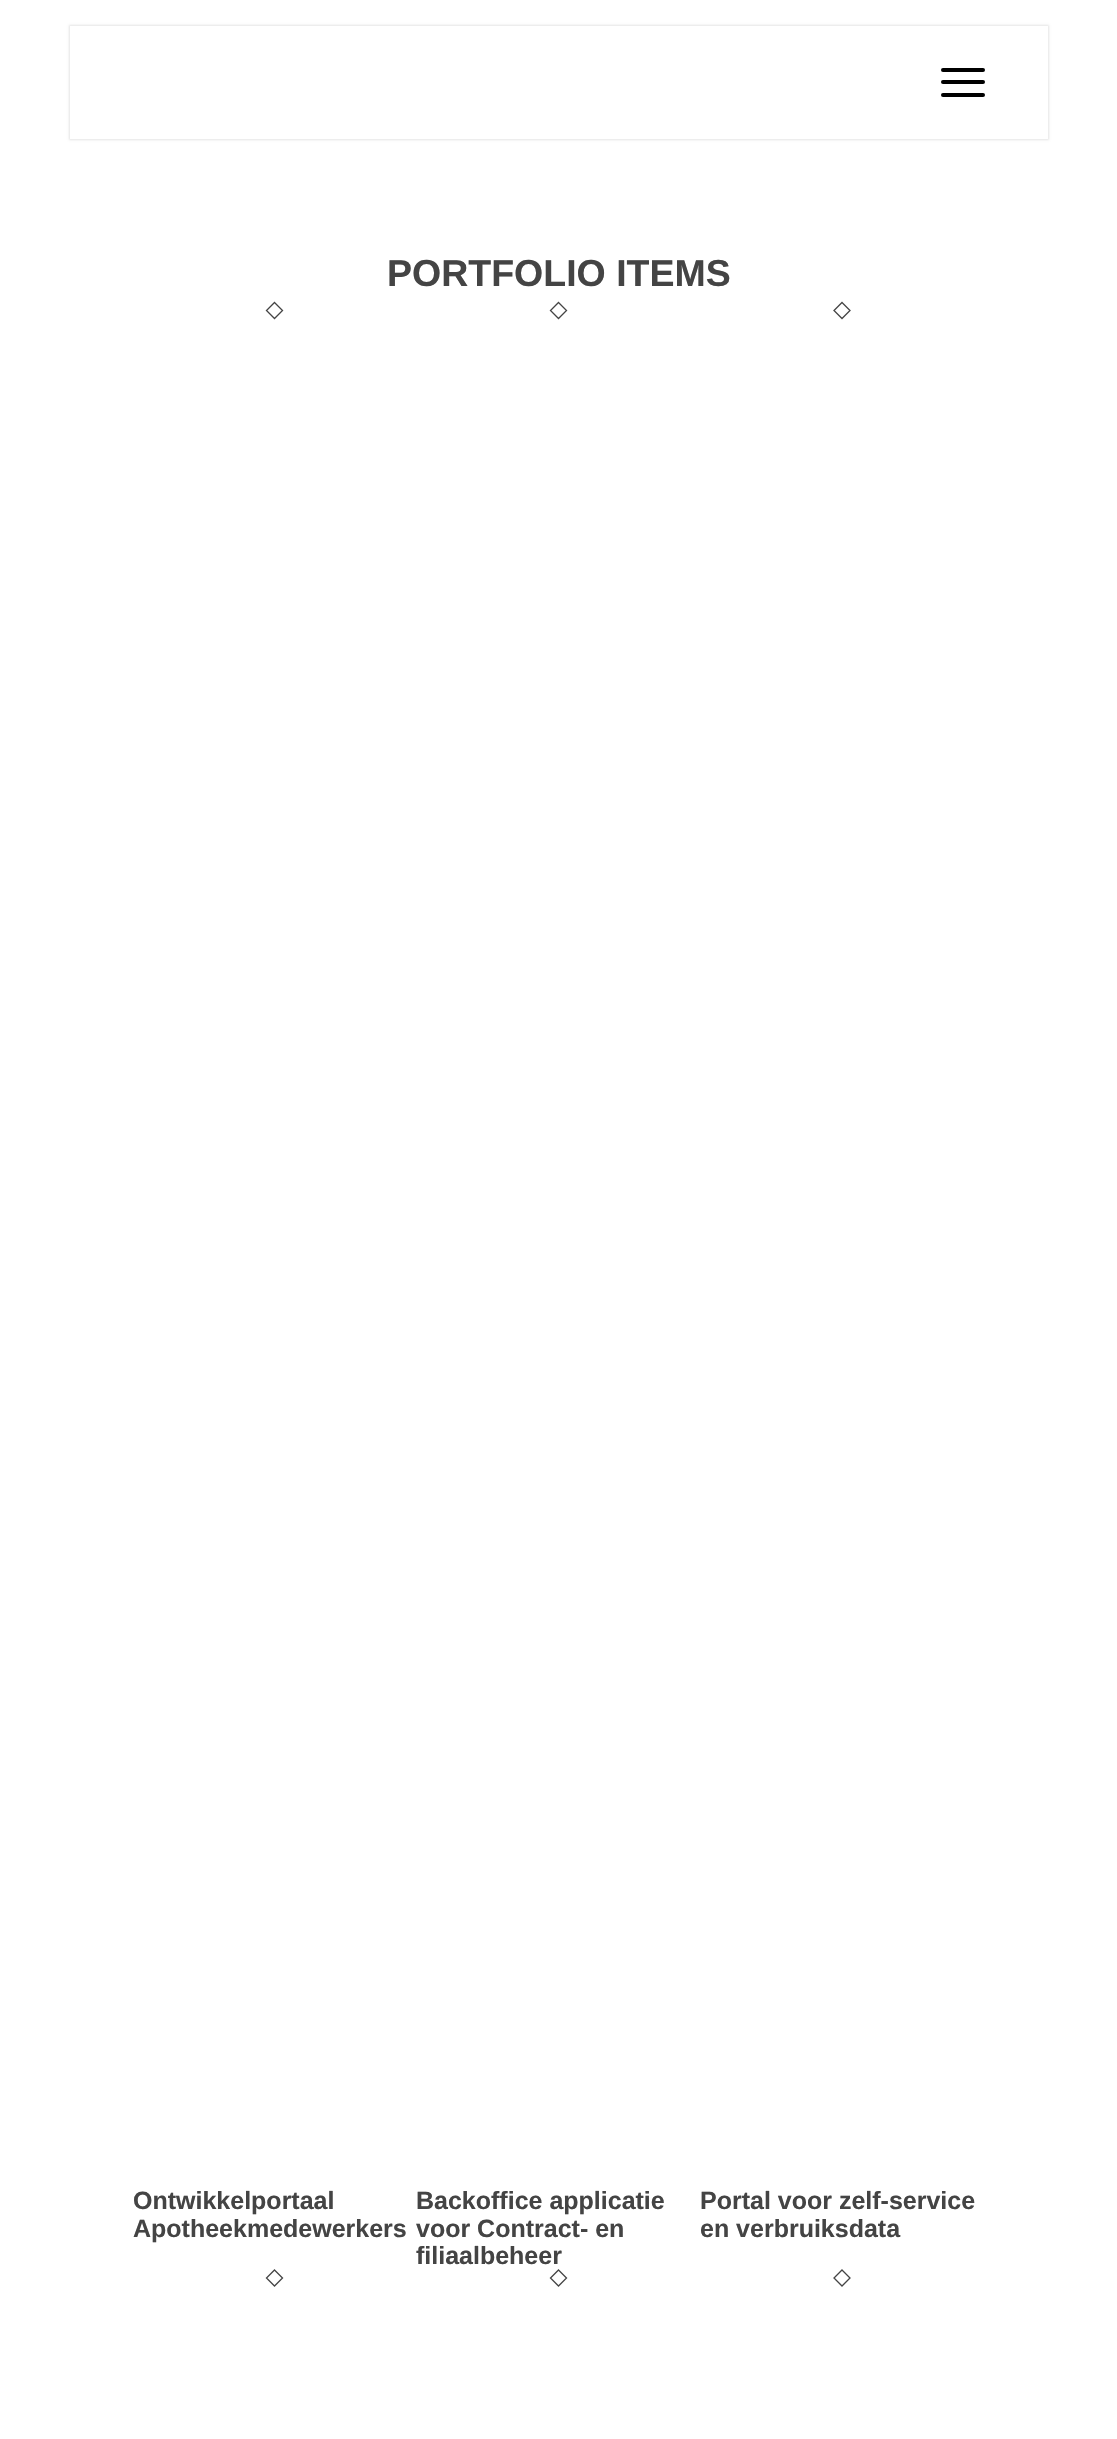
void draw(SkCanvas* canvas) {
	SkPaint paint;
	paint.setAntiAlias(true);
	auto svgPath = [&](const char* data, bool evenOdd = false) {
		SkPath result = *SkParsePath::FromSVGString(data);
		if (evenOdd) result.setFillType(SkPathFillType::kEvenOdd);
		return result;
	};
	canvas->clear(0xffffffff);
	canvas->save();
	canvas->clipPath(svgPath("M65 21H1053V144H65ZM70 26H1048V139H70Z", true), true);
	paint.setColor(0x1a000000);
	paint.setMaskFilter(SkMaskFilter::MakeBlur(kNormal_SkBlurStyle, 1));
	canvas->drawRect(SkRect::MakeXYWH(69, 25, 980, 115), paint);
	paint.setMaskFilter(nullptr);
	canvas->restore();
	paint.setColor(0xff000000);
	canvas->drawRoundRect(SkRect::MakeXYWH(941, 80, 44, 4), 2, 2, paint);
	canvas->drawRoundRect(SkRect::MakeXYWH(941, 68, 44, 4), 2, 2, paint);
	canvas->drawRoundRect(SkRect::MakeXYWH(941, 93, 44, 4), 2, 2, paint);
	SkFont f1(fontMgr->matchFamilyStyle("Liberation Sans", SkFontStyle::Bold()), 37.5);
	f1.setSubpixel(true);
	paint.setColor(0xff444444);
	canvas->drawString("PORTFOLIO ITEMS", 387, 286, f1, paint);
	paint.setStroke(true);
	paint.setStrokeWidth(1.3);
	canvas->drawPath(svgPath("M274.5 302.5L282.5 310.5L274.5 318.5L266.5 310.5Z"), paint);
	SkFont f2(fontMgr->matchFamilyStyle("Liberation Sans", SkFontStyle::Bold()), 25);
	f2.setSubpixel(true);
	paint.setStroke(false);
	canvas->drawString("Ontwikkelportaal", 133, 2209, f2, paint);
	canvas->drawString("Apotheekmedewerkers", 133, 2237, f2, paint);
	paint.setStroke(true);
	canvas->drawPath(svgPath("M558.5 302.5L566.5 310.5L558.5 318.5L550.5 310.5Z"), paint);
	paint.setStroke(false);
	canvas->drawString("Backoffice applicatie", 416, 2209, f2, paint);
	canvas->drawString("voor Contract- en", 416, 2237, f2, paint);
	canvas->drawString("filiaalbeheer", 416, 2264, f2, paint);
	paint.setStroke(true);
	canvas->drawPath(svgPath("M842 302.5L850 310.5L842 318.5L834 310.5Z"), paint);
	paint.setStroke(false);
	canvas->drawString("Portal voor zelf-service", 700, 2209, f2, paint);
	canvas->drawString("en verbruiksdata", 700, 2237, f2, paint);
	paint.setStroke(true);
	canvas->drawPath(svgPath("M274.5 2270L282.5 2278L274.5 2286L266.5 2278Z"), paint);
	canvas->drawPath(svgPath("M558.5 2270L566.5 2278L558.5 2286L550.5 2278Z"), paint);
	canvas->drawPath(svgPath("M842 2270L850 2278L842 2286L834 2278Z"), paint);
}
